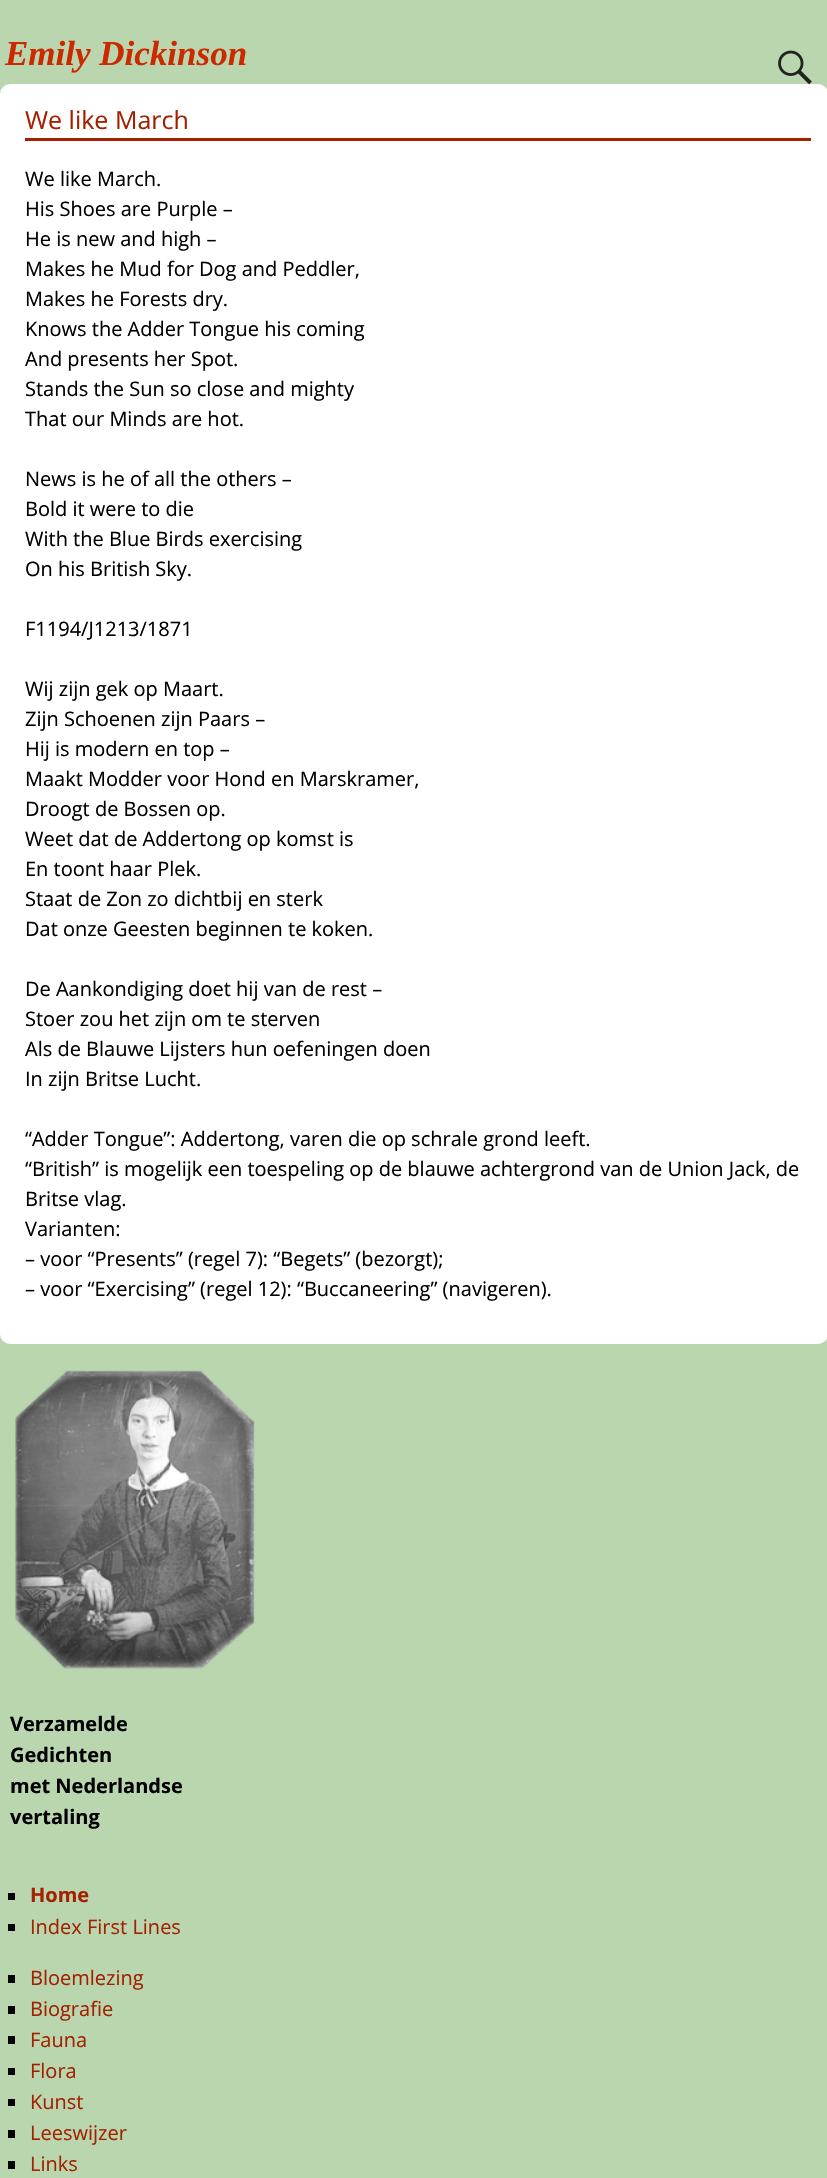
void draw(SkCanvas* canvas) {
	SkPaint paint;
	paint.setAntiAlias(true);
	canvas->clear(0xffb9d6af);
	SkFont f1(fontMgr->matchFamilyStyle("Liberation Serif", SkFontStyle::BoldItalic()), 35);
	f1.setSubpixel(true);
	paint.setColor(0xffcc2900);
	canvas->drawString("Emily Dickinson", 5, 65, f1, paint);
	paint.setColor(0xffffffff);
	canvas->drawRoundRect(SkRect::MakeXYWH(0, 84, 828, 1260), 10, 10, paint);
	canvas->drawImageRect(SkImages::DeferredFromEncodedData(SkData::MakeFromFileName("img1.png")), SkRect::MakeXYWH(778, 50, 34, 35), SkSamplingOptions());
	paint.setColor(0xffa32100);
	canvas->drawRect(SkRect::MakeXYWH(25, 138, 786, 3), paint);
	SkFont f2(fontMgr->matchFamilyStyle("Open Sans", SkFontStyle::Normal()), 25);
	f2.setSubpixel(true);
	canvas->drawString("We like March", 25, 129, f2, paint);
	SkFont f3(fontMgr->matchFamilyStyle("Open Sans", SkFontStyle::Normal()), 20);
	f3.setSubpixel(true);
	paint.setColor(0xff000000);
	canvas->drawString("We like March.", 25, 186, f3, paint);
	canvas->drawString("His Shoes are Purple –", 25, 216, f3, paint);
	canvas->drawString("He is new and high –", 25, 246, f3, paint);
	canvas->drawString("Makes he Mud for Dog and Peddler,", 25, 276, f3, paint);
	canvas->drawString("Makes he Forests dry.", 25, 306, f3, paint);
	canvas->drawString("Knows the Adder Tongue his coming", 25, 336, f3, paint);
	canvas->drawString("And presents her Spot.", 25, 366, f3, paint);
	canvas->drawString("Stands the Sun so close and mighty", 25, 396, f3, paint);
	canvas->drawString("That our Minds are hot.", 25, 426, f3, paint);
	canvas->drawString("News is he of all the others –", 25, 486, f3, paint);
	canvas->drawString("Bold it were to die", 25, 516, f3, paint);
	canvas->drawString("With the Blue Birds exercising", 25, 546, f3, paint);
	canvas->drawString("On his British Sky.", 25, 576, f3, paint);
	canvas->drawString("F1194/J1213/1871", 25, 636, f3, paint);
	canvas->drawString("Wij zijn gek op Maart.", 25, 696, f3, paint);
	canvas->drawString("Zijn Schoenen zijn Paars –", 25, 726, f3, paint);
	canvas->drawString("Hij is modern en top –", 25, 756, f3, paint);
	canvas->drawString("Maakt Modder voor Hond en Marskramer,", 25, 786, f3, paint);
	canvas->drawString("Droogt de Bossen op.", 25, 816, f3, paint);
	canvas->drawString("Weet dat de Addertong op komst is", 25, 846, f3, paint);
	canvas->drawString("En toont haar Plek.", 25, 876, f3, paint);
	canvas->drawString("Staat de Zon zo dichtbij en sterk", 25, 906, f3, paint);
	canvas->drawString("Dat onze Geesten beginnen te koken.", 25, 936, f3, paint);
	canvas->drawString("De Aankondiging doet hij van de rest –", 25, 996, f3, paint);
	canvas->drawString("Stoer zou het zijn om te sterven", 25, 1026, f3, paint);
	canvas->drawString("Als de Blauwe Lijsters hun oefeningen doen", 25, 1056, f3, paint);
	canvas->drawString("In zijn Britse Lucht.", 25, 1086, f3, paint);
	canvas->drawString("“Adder Tongue”: Addertong, varen die op schrale grond leeft.", 25, 1146, f3, paint);
	canvas->drawString("“British” is mogelijk een toespeling op de blauwe achtergrond van de Union Jack, de", 25, 1176, f3, paint);
	canvas->drawString("Britse vlag.", 25, 1206, f3, paint);
	canvas->drawString("Varianten:", 25, 1236, f3, paint);
	canvas->drawString("– voor “Presents” (regel 7): “Begets” (bezorgt);", 25, 1266, f3, paint);
	canvas->drawString("– voor “Exercising” (regel 12): “Buccaneering” (navigeren).", 25, 1296, f3, paint);
	canvas->drawImageRect(SkImages::DeferredFromEncodedData(SkData::MakeFromFileName("img2.png")), SkRect::MakeXYWH(15, 1370, 240, 299), SkSamplingOptions());
	SkFont f4(fontMgr->matchFamilyStyle("Open Sans", SkFontStyle::Bold()), 20);
	f4.setSubpixel(true);
	canvas->drawString("Verzamelde", 10, 1731, f4, paint);
	canvas->drawString("Gedichten", 10, 1762, f4, paint);
	canvas->drawString("met Nederlandse", 10, 1793, f4, paint);
	canvas->drawString("vertaling", 10, 1824, f4, paint);
	canvas->drawRect(SkRect::MakeXYWH(8, 1893, 7, 7), paint);
	paint.setColor(0xffa32100);
	canvas->drawString("Home", 30, 1902, f4, paint);
	paint.setColor(0xff000000);
	canvas->drawRect(SkRect::MakeXYWH(8, 1924, 7, 7), paint);
	paint.setColor(0xffa32100);
	canvas->drawString("Index First Lines", 30, 1934, f3, paint);
	paint.setColor(0xff000000);
	canvas->drawRect(SkRect::MakeXYWH(8, 1975, 7, 8), paint);
	paint.setColor(0xffa32100);
	canvas->drawString("Bloemlezing", 30, 1985, f3, paint);
	paint.setColor(0xff000000);
	canvas->drawRect(SkRect::MakeXYWH(8, 2006, 7, 8), paint);
	paint.setColor(0xffa32100);
	canvas->drawString("Biografie", 30, 2016, f3, paint);
	paint.setColor(0xff000000);
	canvas->drawRect(SkRect::MakeXYWH(8, 2036, 7, 8), paint);
	paint.setColor(0xffa32100);
	canvas->drawString("Fauna", 30, 2047, f3, paint);
	paint.setColor(0xff000000);
	canvas->drawRect(SkRect::MakeXYWH(8, 2068, 7, 7), paint);
	paint.setColor(0xffa32100);
	canvas->drawString("Flora", 30, 2078, f3, paint);
	paint.setColor(0xff000000);
	canvas->drawRect(SkRect::MakeXYWH(8, 2099, 7, 7), paint);
	paint.setColor(0xffa32100);
	canvas->drawString("Kunst", 30, 2109, f3, paint);
	paint.setColor(0xff000000);
	canvas->drawRect(SkRect::MakeXYWH(8, 2130, 7, 8), paint);
	paint.setColor(0xffa32100);
	canvas->drawString("Leeswijzer", 30, 2140, f3, paint);
	paint.setColor(0xff000000);
	canvas->drawRect(SkRect::MakeXYWH(8, 2161, 7, 8), paint);
	paint.setColor(0xffa32100);
	canvas->drawString("Links", 30, 2171, f3, paint);
}
